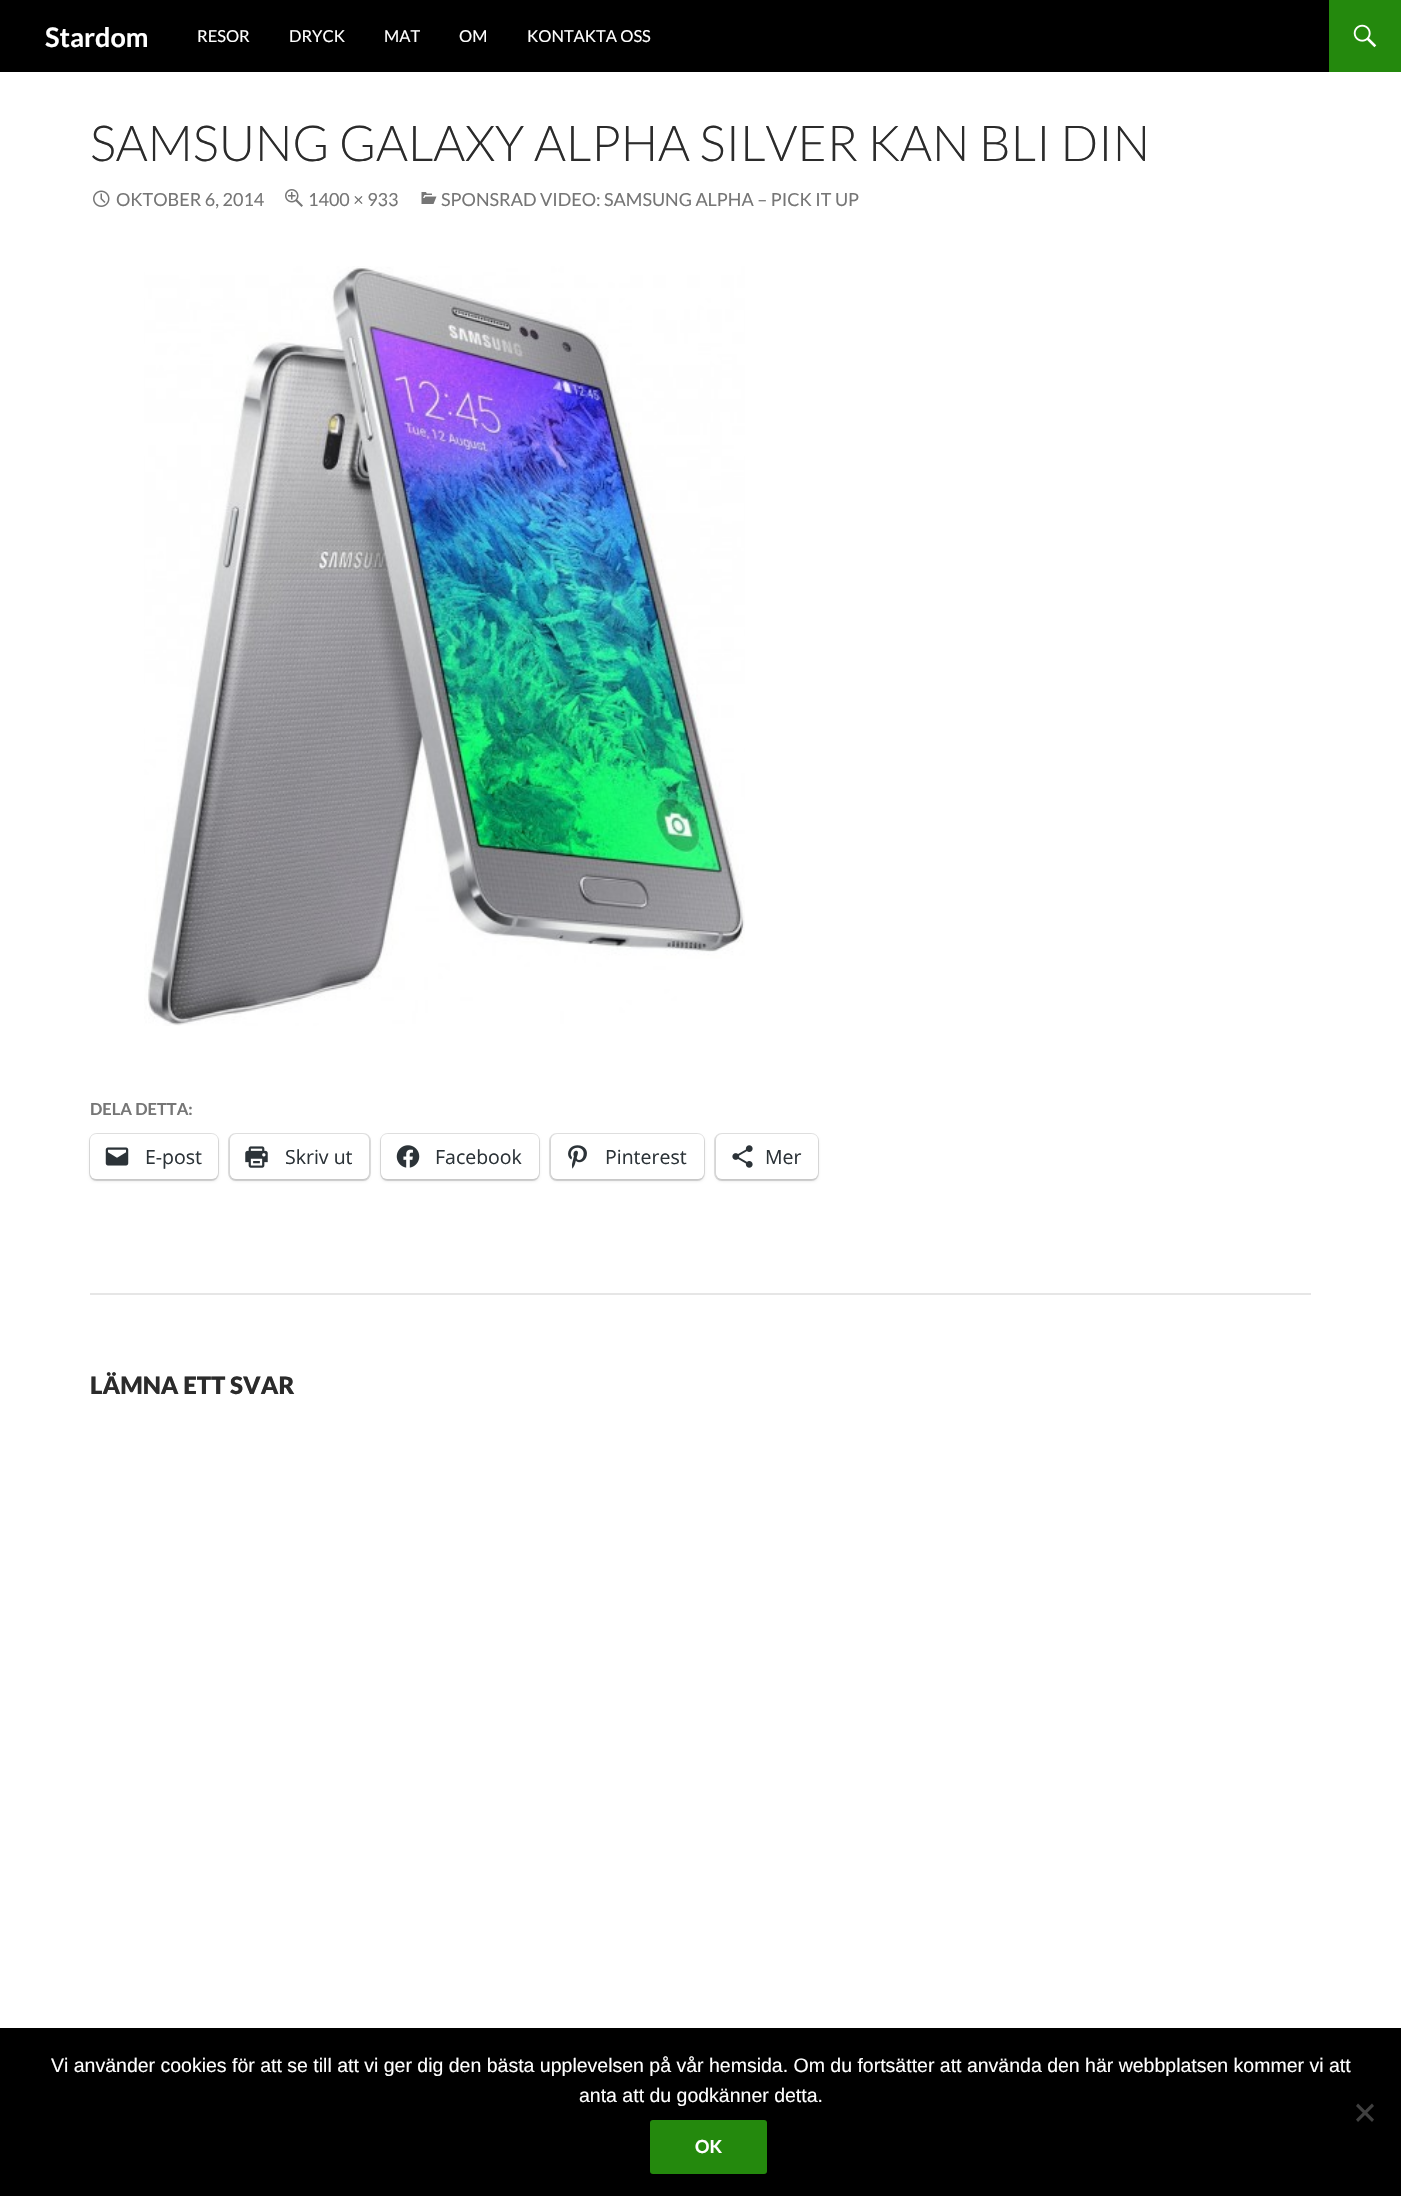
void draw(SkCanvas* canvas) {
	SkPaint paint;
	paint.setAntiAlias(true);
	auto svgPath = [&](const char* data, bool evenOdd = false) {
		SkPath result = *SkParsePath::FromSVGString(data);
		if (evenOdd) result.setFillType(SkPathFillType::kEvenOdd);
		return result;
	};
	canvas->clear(0xffffffff);
	paint.setColor(0xff000000);
	canvas->drawRect(SkRect::MakeXYWH(0, 0, 1329, 72), paint);
	SkFont f1(fontMgr->matchFamilyStyle("Lato", SkFontStyle::Bold()), 27);
	f1.setSubpixel(true);
	paint.setColor(0xffffffff);
	canvas->drawString("Stardom", 45, 47, f1, paint);
	SkFont f2(fontMgr->matchFamilyStyle("Lato", SkFontStyle::Normal()), 16.5);
	f2.setSubpixel(true);
	canvas->drawString("RESOR", 197, 42, f2, paint);
	canvas->drawString("DRYCK", 289, 42, f2, paint);
	canvas->drawString("MAT", 384, 42, f2, paint);
	canvas->drawString("OM", 459, 42, f2, paint);
	canvas->drawString("KONTAKTA OSS", 527, 42, f2, paint);
	paint.setColor(0xff24890d);
	canvas->drawRect(SkRect::MakeXYWH(1329, 0, 72, 72), paint);
	canvas->drawImageRect(SkImages::DeferredFromEncodedData(SkData::MakeFromFileName("img1.png")), SkRect::MakeXYWH(1353, 24, 24, 24), SkSamplingOptions());
	SkFont f3(fontMgr->matchFamilyStyle("Lato", SkFontStyle(300, SkFontStyle::kNormal_Width, SkFontStyle::kUpright_Slant)), 49.5);
	f3.setSubpixel(true);
	paint.setColor(0xff2b2b2b);
	canvas->drawString("SAMSUNG GALAXY ALPHA SILVER KAN BLI DIN", 90, 161, f3, paint);
	canvas->drawImageRect(SkImages::DeferredFromEncodedData(SkData::MakeFromFileName("img2.png")), SkRect::MakeXYWH(93, 190, 17, 17), SkSamplingOptions());
	SkFont f4(fontMgr->matchFamilyStyle("Lato", SkFontStyle::Normal()), 18);
	f4.setSubpixel(true);
	paint.setColor(0xff767676);
	canvas->drawString("OKTOBER 6, 2014", 116, 206, f4, paint);
	canvas->drawImageRect(SkImages::DeferredFromEncodedData(SkData::MakeFromFileName("img3.png")), SkRect::MakeXYWH(285, 189, 18, 18), SkSamplingOptions());
	canvas->drawString("1400 × 933", 308, 206, f4, paint);
	canvas->drawImageRect(SkImages::DeferredFromEncodedData(SkData::MakeFromFileName("img4.png")), SkRect::MakeXYWH(421, 192, 16, 12), SkSamplingOptions());
	canvas->drawString("SPONSRAD VIDEO: SAMSUNG ALPHA – PICK IT UP", 441, 206, f4, paint);
	canvas->drawImageRect(SkImages::DeferredFromEncodedData(SkData::MakeFromFileName("img5.png")), SkRect::MakeXYWH(144, 266, 601, 760), SkSamplingOptions());
	SkFont f5(fontMgr->matchFamilyStyle("Lato", SkFontStyle::Bold()), 16.5);
	f5.setSubpixel(true);
	canvas->drawString("DELA DETTA:", 90, 1115, f5, paint);
	paint.setStroke(true);
	paint.setStrokeWidth(2);
	paint.setColor(0xffe0e0e0);
	canvas->drawRoundRect(SkRect::MakeXYWH(90, 1134, 128, 46), 7, 7, paint);
	paint.setStroke(false);
	paint.setColor(0x1f000000);
	paint.setMaskFilter(SkMaskFilter::MakeBlur(kNormal_SkBlurStyle, 1.5));
	canvas->drawRoundRect(SkRect::MakeXYWH(90, 1136, 128, 45), 6, 6, paint);
	paint.setMaskFilter(nullptr);
	paint.setColor(0xffffffff);
	canvas->drawRoundRect(SkRect::MakeXYWH(90, 1134, 128, 45), 6, 6, paint);
	canvas->drawImageRect(SkImages::DeferredFromEncodedData(SkData::MakeFromFileName("img6.png")), SkRect::MakeXYWH(105, 1147, 24, 19), SkSamplingOptions());
	SkFont f6(fontMgr->matchFamilyStyle("Open Sans", SkFontStyle::Normal()), 19.5);
	f6.setSubpixel(true);
	paint.setColor(0xff2c3338);
	canvas->drawString("E-post", 145, 1164, f6, paint);
	paint.setStroke(true);
	paint.setColor(0xffe0e0e0);
	canvas->drawRoundRect(SkRect::MakeXYWH(229, 1134, 141, 46), 7, 7, paint);
	paint.setStroke(false);
	paint.setColor(0x1f000000);
	paint.setMaskFilter(SkMaskFilter::MakeBlur(kNormal_SkBlurStyle, 1.5));
	canvas->drawRoundRect(SkRect::MakeXYWH(230, 1136, 139, 45), 6, 6, paint);
	paint.setMaskFilter(nullptr);
	paint.setColor(0xffffffff);
	canvas->drawRoundRect(SkRect::MakeXYWH(230, 1134, 139, 45), 6, 6, paint);
	canvas->drawImageRect(SkImages::DeferredFromEncodedData(SkData::MakeFromFileName("img7.png")), SkRect::MakeXYWH(245, 1146, 23, 22), SkSamplingOptions());
	paint.setColor(0xff2c3338);
	canvas->drawString("Skriv ut", 285, 1164, f6, paint);
	paint.setStroke(true);
	paint.setColor(0xffe0e0e0);
	canvas->drawRoundRect(SkRect::MakeXYWH(381, 1134, 158, 46), 7, 7, paint);
	paint.setStroke(false);
	paint.setColor(0x1f000000);
	paint.setMaskFilter(SkMaskFilter::MakeBlur(kNormal_SkBlurStyle, 1.5));
	canvas->drawRoundRect(SkRect::MakeXYWH(381, 1136, 158, 45), 6, 6, paint);
	paint.setMaskFilter(nullptr);
	paint.setColor(0xffffffff);
	canvas->drawRoundRect(SkRect::MakeXYWH(381, 1134, 158, 45), 6, 6, paint);
	canvas->drawImageRect(SkImages::DeferredFromEncodedData(SkData::MakeFromFileName("img8.png")), SkRect::MakeXYWH(396, 1145, 24, 23), SkSamplingOptions());
	paint.setColor(0xff2c3338);
	canvas->drawString("Facebook", 435, 1164, f6, paint);
	paint.setStroke(true);
	paint.setColor(0xffe0e0e0);
	canvas->drawRoundRect(SkRect::MakeXYWH(550, 1134, 154, 46), 7, 7, paint);
	paint.setStroke(false);
	paint.setColor(0x1f000000);
	paint.setMaskFilter(SkMaskFilter::MakeBlur(kNormal_SkBlurStyle, 1.5));
	canvas->drawRoundRect(SkRect::MakeXYWH(551, 1136, 153, 45), 6, 6, paint);
	paint.setMaskFilter(nullptr);
	paint.setColor(0xffffffff);
	canvas->drawRoundRect(SkRect::MakeXYWH(551, 1134, 153, 45), 6, 6, paint);
	canvas->drawImageRect(SkImages::DeferredFromEncodedData(SkData::MakeFromFileName("img9.png")), SkRect::MakeXYWH(568, 1145, 19, 24), SkSamplingOptions());
	paint.setColor(0xff2c3338);
	canvas->drawString("Pinterest", 605, 1164, f6, paint);
	paint.setStroke(true);
	paint.setColor(0xffe0e0e0);
	canvas->drawRoundRect(SkRect::MakeXYWH(715, 1134, 103, 46), 7, 7, paint);
	paint.setStroke(false);
	paint.setColor(0x1f000000);
	paint.setMaskFilter(SkMaskFilter::MakeBlur(kNormal_SkBlurStyle, 1.5));
	canvas->drawRoundRect(SkRect::MakeXYWH(716, 1136, 102, 45), 6, 6, paint);
	paint.setMaskFilter(nullptr);
	paint.setColor(0xffffffff);
	canvas->drawRoundRect(SkRect::MakeXYWH(716, 1134, 102, 45), 6, 6, paint);
	canvas->drawImageRect(SkImages::DeferredFromEncodedData(SkData::MakeFromFileName("img10.png")), SkRect::MakeXYWH(732, 1145, 21, 23), SkSamplingOptions());
	paint.setColor(0xff2c3338);
	canvas->drawString("Mer", 765, 1164, f6, paint);
	paint.setColor(0xffe6e6e6);
	canvas->drawRect(SkRect::MakeXYWH(90, 1293, 1221, 2), paint);
	SkFont f7(fontMgr->matchFamilyStyle("Lato", SkFontStyle(900, SkFontStyle::kNormal_Width, SkFontStyle::kUpright_Slant)), 24);
	f7.setSubpixel(true);
	paint.setColor(0xff2b2b2b);
	canvas->drawString("LÄMNA ETT SVAR", 90, 1394, f7, paint);
	paint.setColor(0xff000000);
	canvas->drawRect(SkRect::MakeXYWH(0, 2028, 1401, 168), paint);
	SkFont f8(fontMgr->matchFamilyStyle("Liberation Sans", SkFontStyle::Normal()), 19.5);
	f8.setSubpixel(true);
	paint.setColor(0xffffffff);
	canvas->drawString("Vi använder cookies för att se till att vi ger dig den bästa upplevelsen på vår hemsida. Om du fortsätter att använda den här webbplatsen kommer vi att", 51, 2072, f8, paint);
	canvas->drawString("anta att du godkänner detta.", 579, 2102, f8, paint);
	paint.setColor(0xff404040);
	canvas->drawPath(svgPath("M1372 2103.5L1374 2106L1358 2122L1356 2119.5Z"), paint);
	canvas->drawPath(svgPath("M1356 2106L1358 2103.5L1374 2119.5L1372 2122Z"), paint);
	paint.setColor(0xff24890d);
	canvas->drawRoundRect(SkRect::MakeXYWH(650, 2120, 117, 54), 3, 3, paint);
	SkFont f9(fontMgr->matchFamilyStyle("Lato", SkFontStyle::Bold()), 18);
	f9.setSubpixel(true);
	paint.setColor(0xffffffff);
	canvas->drawString("OK", 695, 2153, f9, paint);
}
